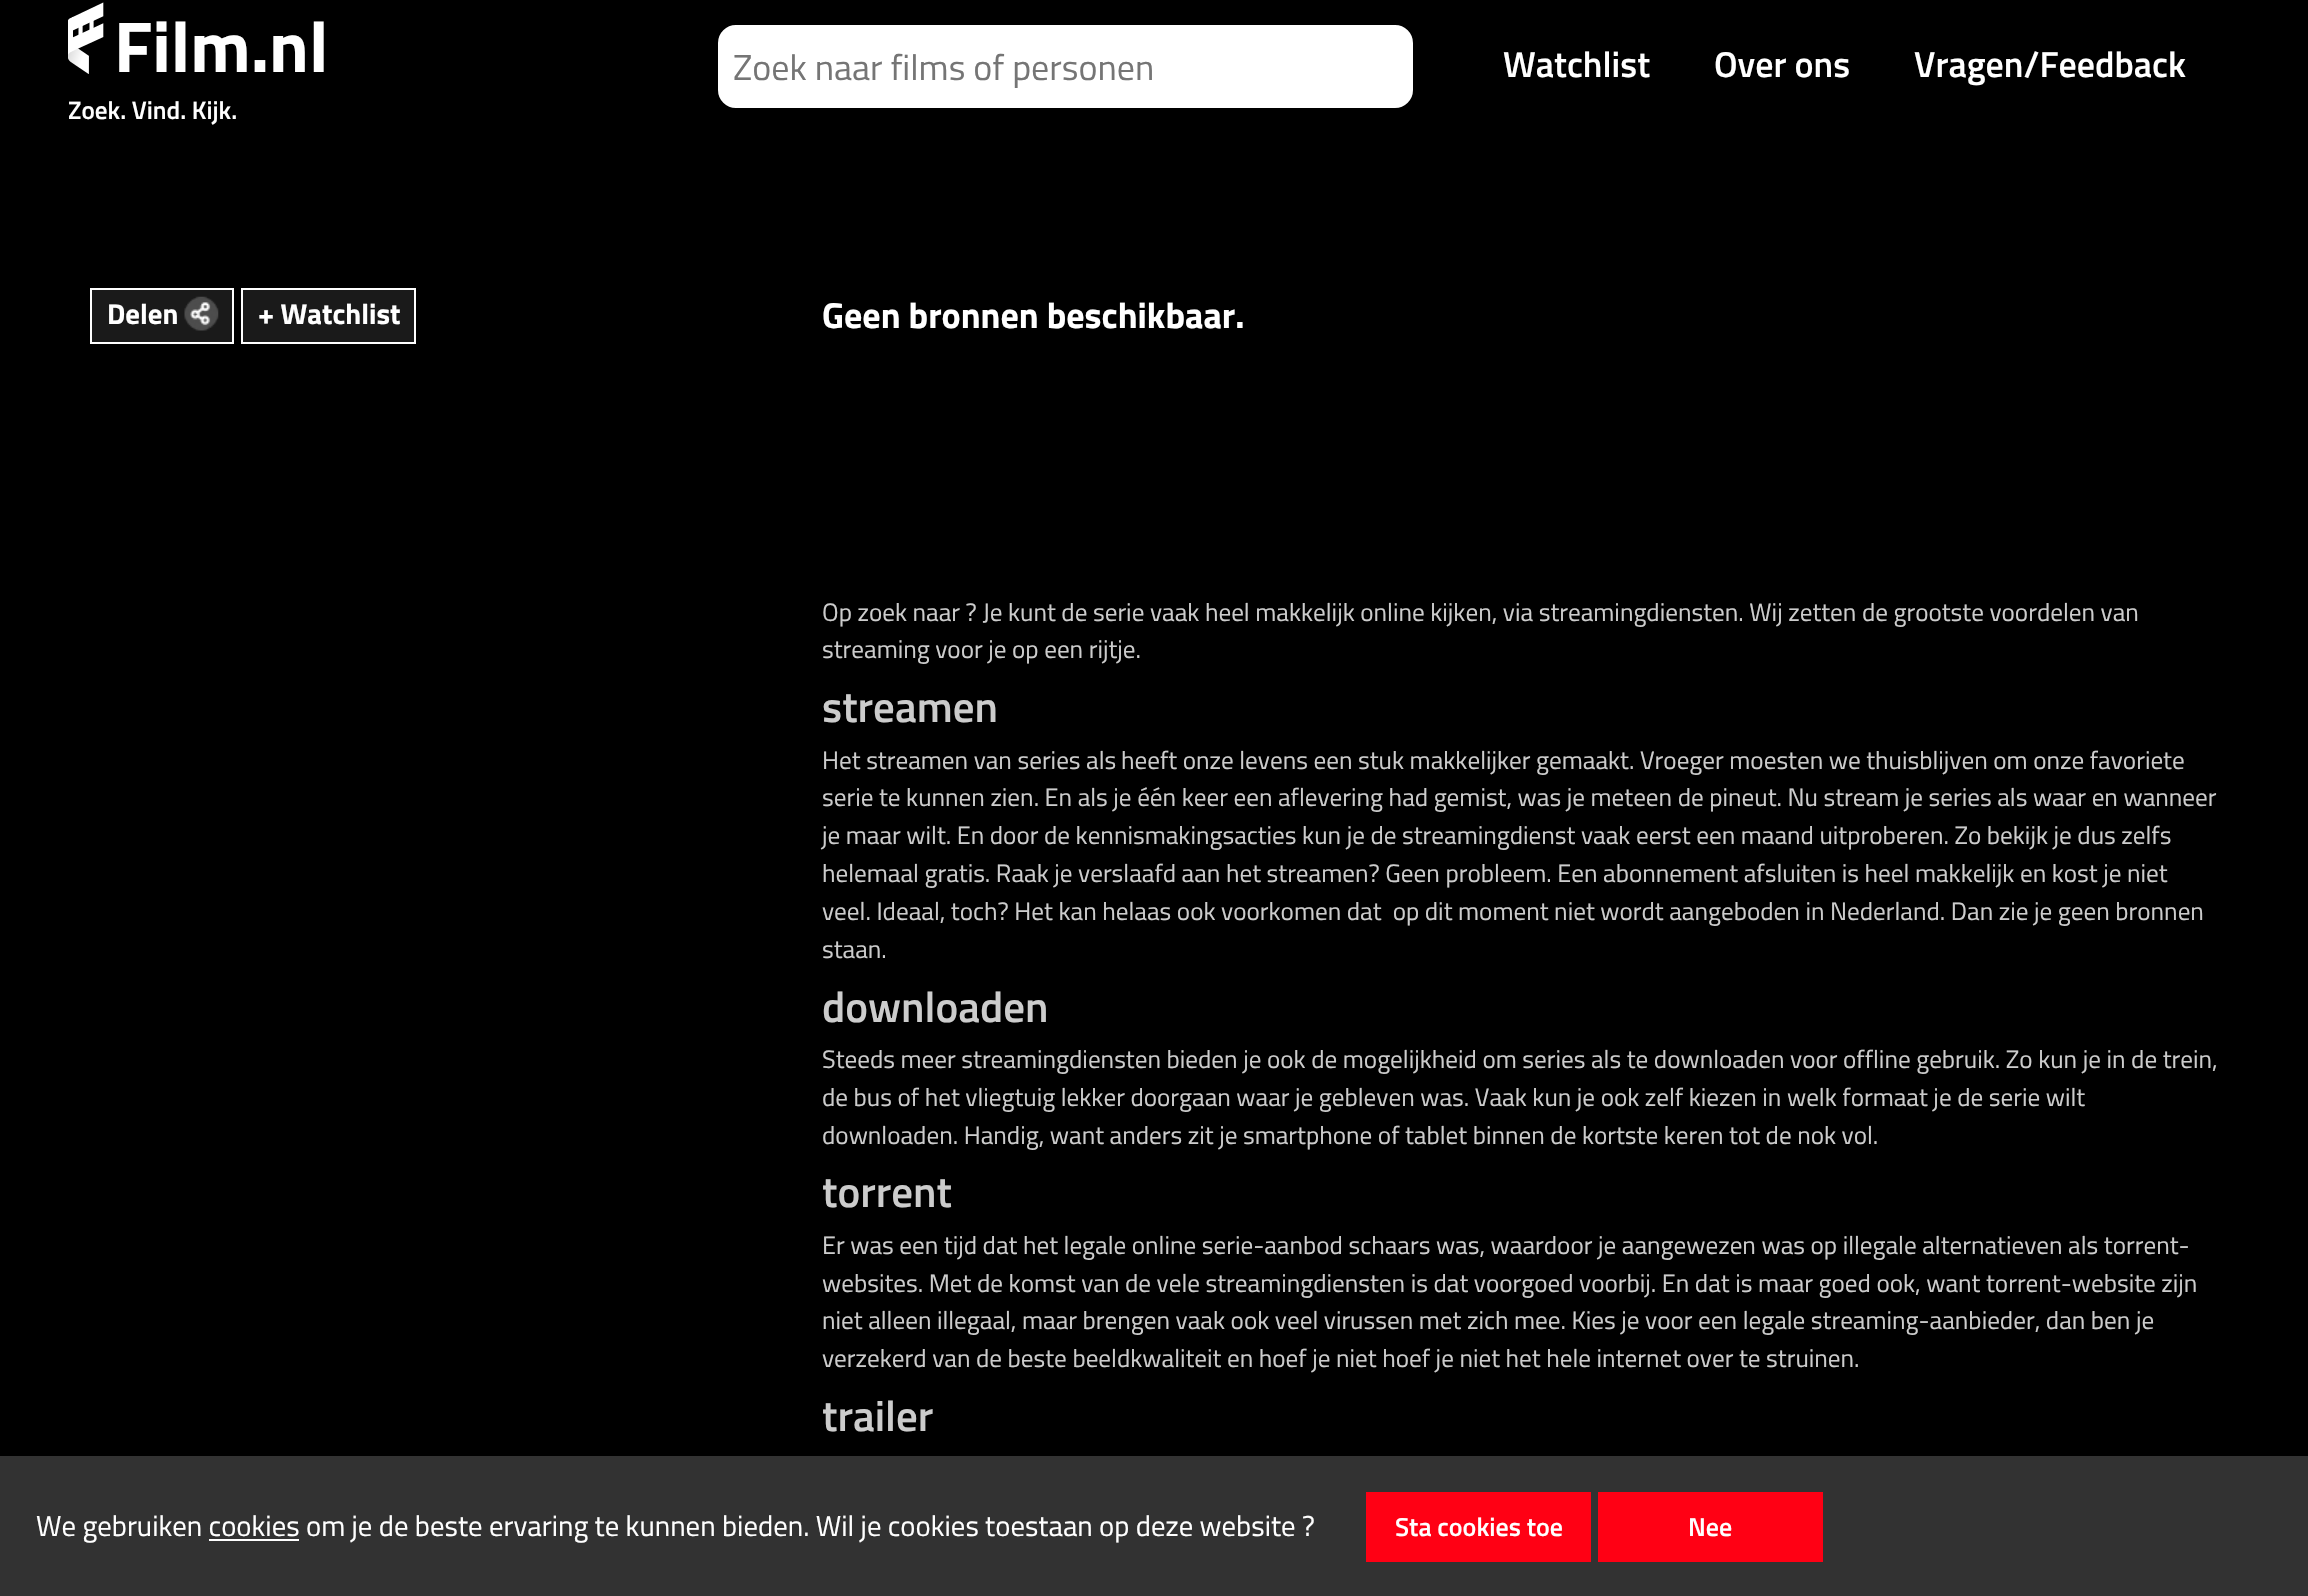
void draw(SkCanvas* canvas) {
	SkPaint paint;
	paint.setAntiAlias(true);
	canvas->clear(0xff000000);
	canvas->drawImageRect(SkImages::DeferredFromEncodedData(SkData::MakeFromFileName("img1.png")), SkRect::MakeXYWH(68, 2, 36, 72), SkSamplingOptions());
	SkFont f1(fontMgr->matchFamilyStyle("Titillium Web", SkFontStyle::Bold()), 72);
	f1.setSubpixel(true);
	paint.setColor(0xffffffff);
	canvas->drawString("Film.nl", 114, 72, f1, paint);
	SkFont f2(fontMgr->matchFamilyStyle("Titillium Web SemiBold", SkFontStyle(600, SkFontStyle::kNormal_Width, SkFontStyle::kUpright_Slant)), 25.2);
	f2.setSubpixel(true);
	canvas->drawString("Zoek. Vind. Kijk.", 68, 119, f2, paint);
	canvas->drawRoundRect(SkRect::MakeXYWH(719, 26, 693, 81), 17, 17, paint);
	paint.setStroke(true);
	paint.setStrokeWidth(2);
	canvas->drawRoundRect(SkRect::MakeXYWH(719, 26, 693, 81), 17, 17, paint);
	SkFont f3(fontMgr->matchFamilyStyle("Titillium Web", SkFontStyle::Normal()), 36);
	f3.setSubpixel(true);
	paint.setStroke(false);
	paint.setColor(0xff757575);
	canvas->drawString("Zoek naar films of personen", 733, 80, f3, paint);
	SkFont f4(fontMgr->matchFamilyStyle("Titillium Web SemiBold", SkFontStyle(600, SkFontStyle::kNormal_Width, SkFontStyle::kUpright_Slant)), 36);
	f4.setSubpixel(true);
	paint.setColor(0xffffffff);
	canvas->drawString("Watchlist", 1503, 77, f4, paint);
	canvas->drawString("Over ons", 1714, 77, f4, paint);
	canvas->drawString("Vragen/Feedback", 1914, 77, f4, paint);
	paint.setColor(0xff1a1a1a);
	canvas->drawRect(SkRect::MakeXYWH(91, 289, 142, 54), paint);
	paint.setStroke(true);
	paint.setColor(0xffffffff);
	canvas->drawRect(SkRect::MakeXYWH(91, 289, 142, 54), paint);
	SkFont f5(fontMgr->matchFamilyStyle("Titillium Web", SkFontStyle::Bold()), 28.8);
	f5.setSubpixel(true);
	paint.setStroke(false);
	canvas->drawString("Delen", 107, 324, f5, paint);
	canvas->drawImageRect(SkImages::DeferredFromEncodedData(SkData::MakeFromFileName("img2.png")), SkRect::MakeXYWH(184, 296, 35, 35), SkSamplingOptions());
	paint.setColor(0xff1a1a1a);
	canvas->drawRect(SkRect::MakeXYWH(242, 289, 173, 54), paint);
	paint.setStroke(true);
	paint.setColor(0xffffffff);
	canvas->drawRect(SkRect::MakeXYWH(242, 289, 173, 54), paint);
	paint.setStroke(false);
	canvas->drawString("+ Watchlist", 258, 324, f5, paint);
	SkFont f6(fontMgr->matchFamilyStyle("Titillium Web", SkFontStyle::Bold()), 36);
	f6.setSubpixel(true);
	canvas->drawString("Geen bronnen beschikbaar.", 822, 328, f6, paint);
	SkFont f7(fontMgr->matchFamilyStyle("Titillium Web", SkFontStyle::Normal()), 25.2);
	f7.setSubpixel(true);
	paint.setColor(0xffcccccc);
	canvas->drawString("Op zoek naar ? Je kunt de serie vaak heel makkelijk online kijken, via streamingdiensten. Wij zetten de grootste voordelen van", 822, 621, f7, paint);
	canvas->drawString("streaming voor je op een rijtje.", 822, 658, f7, paint);
	SkFont f8(fontMgr->matchFamilyStyle("Titillium Web SemiBold", SkFontStyle(600, SkFontStyle::kNormal_Width, SkFontStyle::kUpright_Slant)), 43);
	f8.setSubpixel(true);
	canvas->drawString("streamen", 822, 722, f8, paint);
	canvas->drawString("Het streamen van series als", 822, 769, f7, paint);
	canvas->drawString("heeft onze levens een stuk makkelijker gemaakt. Vroeger moesten we thuisblijven om onze favoriete", 1121, 769, f7, paint);
	canvas->drawString("serie te kunnen zien. En als je één keer een aflevering had gemist, was je meteen de pineut. Nu stream je series als waar en wanneer", 822, 806, f7, paint);
	canvas->drawString("je maar wilt. En door de kennismakingsacties kun je de streamingdienst vaak eerst een maand uitproberen. Zo bekijk je dus zelfs", 822, 844, f7, paint);
	canvas->drawString("helemaal gratis. Raak je verslaafd aan het streamen? Geen probleem. Een abonnement afsluiten is heel makkelijk en kost je niet", 822, 882, f7, paint);
	canvas->drawString("veel. Ideaal, toch? Het kan helaas ook voorkomen dat  op dit moment niet wordt aangeboden in Nederland. Dan zie je geen bronnen", 822, 920, f7, paint);
	canvas->drawString("staan.", 822, 958, f7, paint);
	canvas->drawString("downloaden", 822, 1022, f8, paint);
	canvas->drawString("Steeds meer streamingdiensten bieden je ook de mogelijkheid om series als te downloaden voor offline gebruik. Zo kun je in de trein,", 822, 1068, f7, paint);
	canvas->drawString("de bus of het vliegtuig lekker doorgaan waar je gebleven was. Vaak kun je ook zelf kiezen in welk formaat je de serie wilt", 822, 1106, f7, paint);
	canvas->drawString("downloaden. Handig, want anders zit je smartphone of tablet binnen de kortste keren tot de nok vol.", 822, 1144, f7, paint);
	canvas->drawString("torrent", 822, 1207, f8, paint);
	canvas->drawString("Er was een tijd dat het legale online serie-aanbod schaars was, waardoor je aangewezen was op illegale alternatieven als torrent-", 822, 1254, f7, paint);
	canvas->drawString("websites. Met de komst van de vele streamingdiensten is dat voorgoed voorbij. En dat is maar goed ook, want torrent-website zijn", 822, 1292, f7, paint);
	canvas->drawString("niet alleen illegaal, maar brengen vaak ook veel virussen met zich mee. Kies je voor een legale streaming-aanbieder, dan ben je", 822, 1329, f7, paint);
	canvas->drawString("verzekerd van de beste beeldkwaliteit en hoef je niet hoef je niet het hele internet over te struinen.", 822, 1367, f7, paint);
	canvas->drawString("trailer", 822, 1431, f8, paint);
	paint.setColor(0xff323232);
	canvas->drawRect(SkRect::MakeXYWH(0, 1456, 2308, 140), paint);
	SkFont f9(fontMgr->matchFamilyStyle("Titillium Web", SkFontStyle::Normal()), 28.8);
	f9.setSubpixel(true);
	paint.setColor(0xffffffff);
	canvas->drawString("We gebruiken cookies om je de beste ervaring te kunnen bieden. Wil je cookies toestaan op deze website ?", 36, 1536, f9, paint);
	paint.setColor(0xffff0014);
	canvas->drawRect(SkRect::MakeXYWH(1366, 1492, 225, 70), paint);
	SkFont f10(fontMgr->matchFamilyStyle("Titillium Web SemiBold", SkFontStyle(600, SkFontStyle::kNormal_Width, SkFontStyle::kUpright_Slant)), 26);
	f10.setSubpixel(true);
	paint.setColor(0xffffffff);
	canvas->drawString("Sta cookies toe", 1395, 1536, f10, paint);
	paint.setColor(0xffff0014);
	canvas->drawRect(SkRect::MakeXYWH(1598, 1492, 225, 70), paint);
	paint.setColor(0xffffffff);
	canvas->drawString("Nee", 1688, 1536, f10, paint);
	canvas->drawRect(SkRect::MakeXYWH(209, 1539, 90, 2), paint);
}
